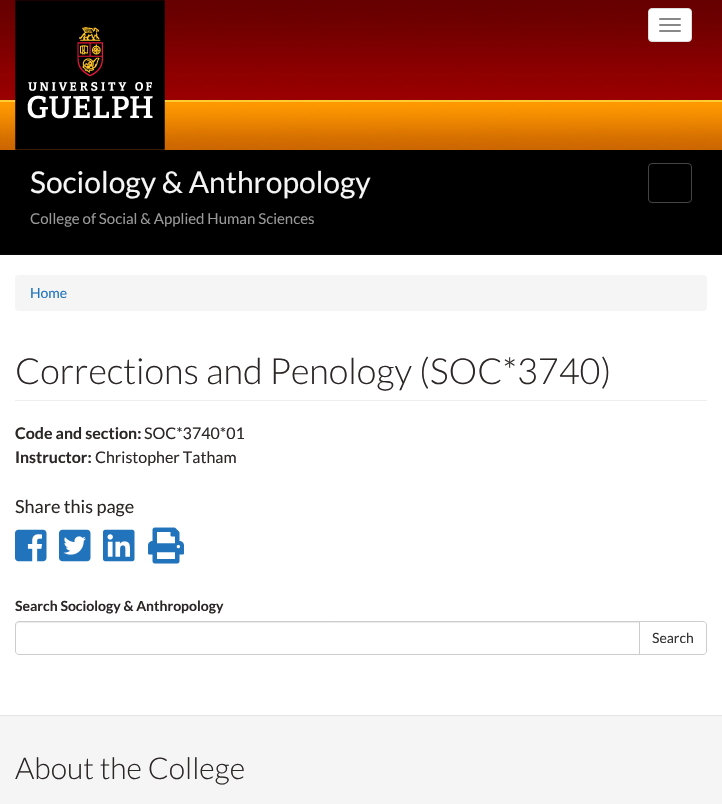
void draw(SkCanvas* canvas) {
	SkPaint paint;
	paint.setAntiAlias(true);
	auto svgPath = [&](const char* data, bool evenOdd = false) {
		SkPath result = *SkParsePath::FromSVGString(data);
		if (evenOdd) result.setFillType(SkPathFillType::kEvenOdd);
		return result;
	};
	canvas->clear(0xffffffff);
	canvas->drawImageRect(SkImages::DeferredFromEncodedData(SkData::MakeFromFileName("img1.png")), SkRect::MakeXYWH(0, 0, 722, 150), SkSamplingOptions());
	canvas->drawImageRect(SkImages::DeferredFromEncodedData(SkData::MakeFromFileName("img2.png")), SkRect::MakeXYWH(15, 0, 692, 150), SkSamplingOptions());
	canvas->drawImageRect(SkImages::DeferredFromEncodedData(SkData::MakeFromFileName("img3.png")), SkRect::MakeXYWH(15, 0, 150, 150), SkSamplingOptions());
	paint.setColor(0xffffffff);
	canvas->drawRoundRect(SkRect::MakeXYWH(648.5, 8.5, 43, 33), 3.5, 3.5, paint);
	paint.setStroke(true);
	paint.setStrokeWidth(1);
	paint.setColor(0xffdddddd);
	canvas->drawRoundRect(SkRect::MakeXYWH(648.5, 8.5, 43, 33), 3.5, 3.5, paint);
	paint.setStroke(false);
	paint.setColor(0xff888888);
	canvas->drawRoundRect(SkRect::MakeXYWH(659, 18, 22, 2), 1, 1, paint);
	canvas->drawRoundRect(SkRect::MakeXYWH(659, 24, 22, 2), 1, 1, paint);
	canvas->drawRoundRect(SkRect::MakeXYWH(659, 30, 22, 2), 1, 1, paint);
	paint.setColor(0xff000000);
	canvas->drawRect(SkRect::MakeXYWH(0, 150, 722, 104), paint);
	paint.setColor(0xff080808);
	canvas->drawRect(SkRect::MakeXYWH(0, 254, 722, 1), paint);
	SkFont f1(fontMgr->matchFamilyStyle("Lato", SkFontStyle::Normal()), 30);
	f1.setSubpixel(true);
	paint.setColor(0xfff5f5f5);
	canvas->drawString("Sociology & Anthropology", 30, 193, f1, paint);
	paint.setStroke(true);
	paint.setColor(0xff444444);
	canvas->drawRoundRect(SkRect::MakeXYWH(648.5, 163.5, 43, 39), 3.5, 3.5, paint);
	SkFont f2(fontMgr->matchFamilyStyle("Lato", SkFontStyle::Normal()), 15);
	f2.setSubpixel(true);
	paint.setStroke(false);
	paint.setColor(0xff999999);
	canvas->drawString("College of Social & Applied Human Sciences", 30, 224, f2, paint);
	paint.setColor(0xfff5f5f5);
	canvas->drawRoundRect(SkRect::MakeXYWH(15, 275, 692, 36), 4, 4, paint);
	SkFont f3(fontMgr->matchFamilyStyle("Lato", SkFontStyle::Normal()), 14);
	f3.setSubpixel(true);
	paint.setColor(0xff2174bb);
	canvas->drawString("Home", 30, 298, f3, paint);
	paint.setColor(0xffeeeeee);
	canvas->drawRect(SkRect::MakeXYWH(15, 400, 692, 1), paint);
	SkFont f4(fontMgr->matchFamilyStyle("Lato", SkFontStyle(300, SkFontStyle::kNormal_Width, SkFontStyle::kUpright_Slant)), 36);
	f4.setSubpixel(true);
	paint.setColor(0xff2c2727);
	canvas->drawString("Corrections and Penology (SOC*3740)", 15, 384, f4, paint);
	SkFont f5(fontMgr->matchFamilyStyle("Lato", SkFontStyle::Bold()), 16);
	f5.setSubpixel(true);
	canvas->drawString("Code and section:", 15, 439, f5, paint);
	SkFont f6(fontMgr->matchFamilyStyle("Lato", SkFontStyle::Normal()), 16);
	f6.setSubpixel(true);
	canvas->drawString("SOC*3740*01", 144, 439, f6, paint);
	canvas->drawString("Instructor:", 15, 463, f5, paint);
	canvas->drawString("Christopher Tatham", 95, 463, f6, paint);
	SkFont f7(fontMgr->matchFamilyStyle("Lato", SkFontStyle::Normal()), 18);
	f7.setSubpixel(true);
	canvas->drawString("Share this page", 15, 513, f7, paint);
	canvas->drawImageRect(SkImages::DeferredFromEncodedData(SkData::MakeFromFileName("img4.png")), SkRect::MakeXYWH(15, 529, 32, 33), SkSamplingOptions());
	canvas->drawImageRect(SkImages::DeferredFromEncodedData(SkData::MakeFromFileName("img5.png")), SkRect::MakeXYWH(59, 529, 32, 33), SkSamplingOptions());
	canvas->drawImageRect(SkImages::DeferredFromEncodedData(SkData::MakeFromFileName("img6.png")), SkRect::MakeXYWH(103, 529, 32, 33), SkSamplingOptions());
	canvas->drawImageRect(SkImages::DeferredFromEncodedData(SkData::MakeFromFileName("img7.png")), SkRect::MakeXYWH(148, 527, 36, 37), SkSamplingOptions());
	SkFont f8(fontMgr->matchFamilyStyle("Lato", SkFontStyle::Bold()), 14);
	f8.setSubpixel(true);
	canvas->drawString("Search Sociology & Anthropology", 15, 611, f8, paint);
	paint.setColor(0xffececec);
	canvas->drawPath(svgPath("M19 623H639V622H19C17 622 16 623 16 625V626C16 624 17 623 19 623Z"), paint);
	paint.setStroke(true);
	paint.setColor(0xffcccccc);
	canvas->drawPath(svgPath("M19 621.5H639.5V654.5H19C17 654.5 15.5 653 15.5 651V625C15.5 623 17 621.5 19 621.5Z"), paint);
	paint.setStroke(false);
	paint.setColor(0xffffffff);
	canvas->drawPath(svgPath("M639.5 621.5H703C705 621.5 706.5 623 706.5 625V651C706.5 653 705 654.5 703 654.5H639.5Z"), paint);
	paint.setStroke(true);
	paint.setColor(0xffcccccc);
	canvas->drawPath(svgPath("M639.5 621.5H703C705 621.5 706.5 623 706.5 625V651C706.5 653 705 654.5 703 654.5H639.5Z"), paint);
	paint.setStroke(false);
	paint.setColor(0xff333333);
	canvas->drawString("Search", 652, 643, f3, paint);
	paint.setColor(0xfff5f5f5);
	canvas->drawRect(SkRect::MakeXYWH(0, 716, 722, 88), paint);
	paint.setColor(0xffe5e5e5);
	canvas->drawRect(SkRect::MakeXYWH(0, 715, 722, 1), paint);
	SkFont f9(fontMgr->matchFamilyStyle("Lato", SkFontStyle(300, SkFontStyle::kNormal_Width, SkFontStyle::kUpright_Slant)), 30);
	f9.setSubpixel(true);
	paint.setColor(0xff2c2727);
	canvas->drawString("About the College", 15, 779, f9, paint);
}
